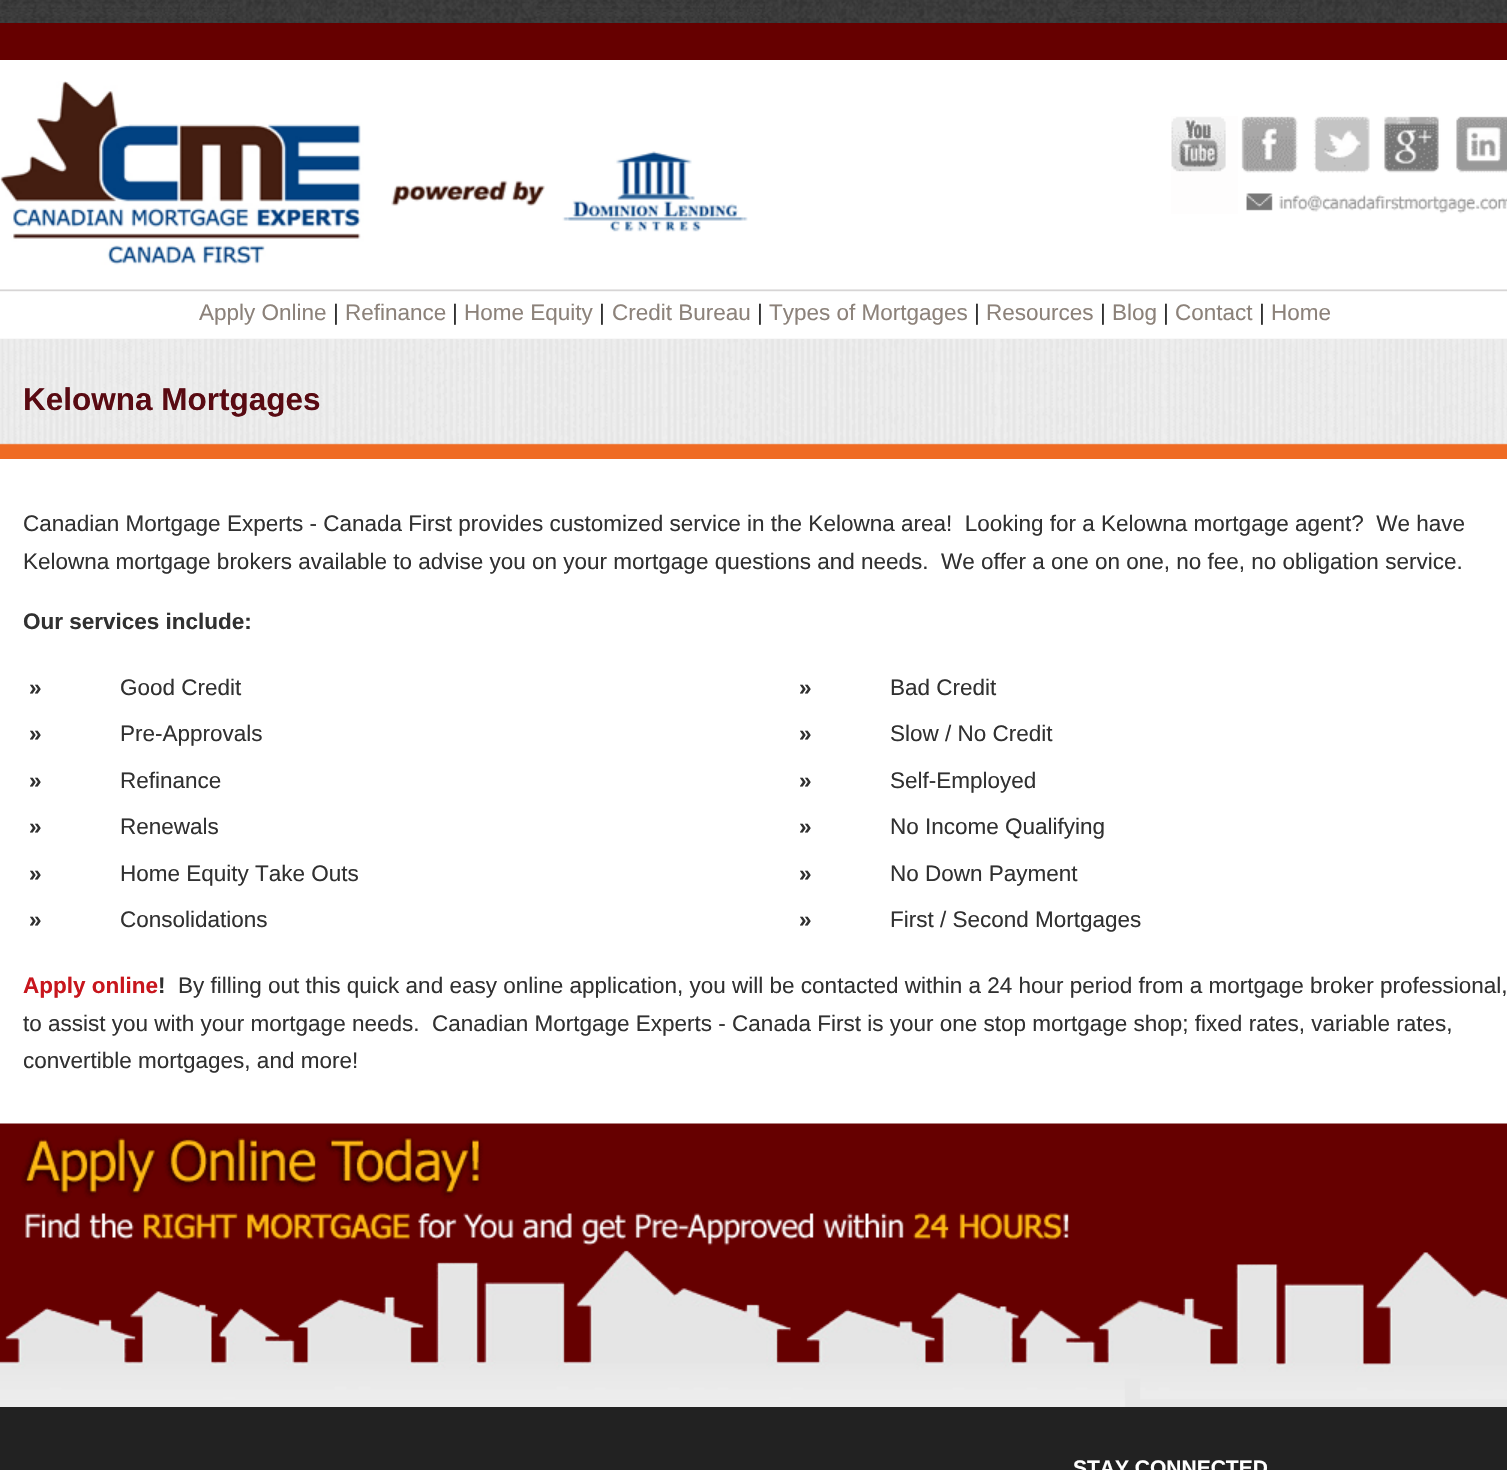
void draw(SkCanvas* canvas) {
	SkPaint paint;
	paint.setAntiAlias(true);
	canvas->clear(0xffffffff);
	canvas->drawImageRect(SkImages::DeferredFromEncodedData(SkData::MakeFromFileName("img1.png")), SkRect::MakeXYWH(0, 0, 1507, 23), SkSamplingOptions());
	paint.setColor(0xff660000);
	canvas->drawRect(SkRect::MakeXYWH(0, 23, 1507, 37), paint);
	canvas->drawImageRect(SkImages::DeferredFromEncodedData(SkData::MakeFromFileName("img2.png")), SkRect::MakeXYWH(0, 81, 748, 184), SkSamplingOptions());
	canvas->drawImageRect(SkImages::DeferredFromEncodedData(SkData::MakeFromFileName("img3.png")), SkRect::MakeXYWH(1171, 116, 336, 98), SkSamplingOptions());
	canvas->drawImageRect(SkImages::DeferredFromEncodedData(SkData::MakeFromFileName("img4.png")), SkRect::MakeXYWH(0, 285, 1507, 54), SkSamplingOptions());
	SkFont f1(fontMgr->matchFamilyStyle("Liberation Sans", SkFontStyle::Normal()), 22.5);
	f1.setSubpixel(true);
	paint.setColor(0xff8c827a);
	canvas->drawString("Apply Online", 199, 320, f1, paint);
	paint.setColor(0xff313131);
	canvas->drawString("|", 333, 320, f1, paint);
	paint.setColor(0xff8c827a);
	canvas->drawString("Refinance", 345, 320, f1, paint);
	paint.setColor(0xff313131);
	canvas->drawString("|", 452, 320, f1, paint);
	paint.setColor(0xff8c827a);
	canvas->drawString("Home Equity", 464, 320, f1, paint);
	paint.setColor(0xff313131);
	canvas->drawString("|", 599, 320, f1, paint);
	paint.setColor(0xff8c827a);
	canvas->drawString("Credit Bureau", 612, 320, f1, paint);
	paint.setColor(0xff313131);
	canvas->drawString("|", 757, 320, f1, paint);
	paint.setColor(0xff8c827a);
	canvas->drawString("Types of Mortgages", 769, 320, f1, paint);
	paint.setColor(0xff313131);
	canvas->drawString("|", 974, 320, f1, paint);
	paint.setColor(0xff8c827a);
	canvas->drawString("Resources", 986, 320, f1, paint);
	paint.setColor(0xff313131);
	canvas->drawString("|", 1100, 320, f1, paint);
	paint.setColor(0xff8c827a);
	canvas->drawString("Blog", 1112, 320, f1, paint);
	paint.setColor(0xff313131);
	canvas->drawString("|", 1163, 320, f1, paint);
	paint.setColor(0xff8c827a);
	canvas->drawString("Contact", 1175, 320, f1, paint);
	paint.setColor(0xff313131);
	canvas->drawString("|", 1259, 320, f1, paint);
	paint.setColor(0xff8c827a);
	canvas->drawString("Home", 1271, 320, f1, paint);
	canvas->drawImageRect(SkImages::DeferredFromEncodedData(SkData::MakeFromFileName("img5.png")), SkRect::MakeXYWH(0, 339, 1507, 120), SkSamplingOptions());
	SkFont f2(fontMgr->matchFamilyStyle("Liberation Sans", SkFontStyle::Bold()), 31.5);
	f2.setSubpixel(true);
	paint.setColor(0xff590a12);
	canvas->drawString("Kelowna Mortgages", 23, 410, f2, paint);
	paint.setColor(0xff313131);
	canvas->drawString("Canadian Mortgage Experts - Canada First provides customized service in the Kelowna area!  Looking for a Kelowna mortgage agent?  We have", 23, 531, f1, paint);
	canvas->drawString("Kelowna mortgage brokers available to advise you on your mortgage questions and needs.  We offer a one on one, no fee, no obligation service.", 23, 569, f1, paint);
	SkFont f3(fontMgr->matchFamilyStyle("Liberation Sans", SkFontStyle::Bold()), 22.5);
	f3.setSubpixel(true);
	canvas->drawString("Our services include:", 23, 629, f3, paint);
	canvas->drawString("»", 29, 695, f3, paint);
	canvas->drawString("Good Credit", 120, 695, f1, paint);
	canvas->drawString("»", 799, 695, f3, paint);
	canvas->drawString("Bad Credit", 890, 695, f1, paint);
	canvas->drawString("»", 29, 741, f3, paint);
	canvas->drawString("Pre-Approvals", 120, 741, f1, paint);
	canvas->drawString("»", 799, 741, f3, paint);
	canvas->drawString("Slow / No Credit", 890, 741, f1, paint);
	canvas->drawString("»", 29, 788, f3, paint);
	canvas->drawString("Refinance", 120, 788, f1, paint);
	canvas->drawString("»", 799, 788, f3, paint);
	canvas->drawString("Self-Employed", 890, 788, f1, paint);
	canvas->drawString("»", 29, 834, f3, paint);
	canvas->drawString("Renewals", 120, 834, f1, paint);
	canvas->drawString("»", 799, 834, f3, paint);
	canvas->drawString("No Income Qualifying", 890, 834, f1, paint);
	canvas->drawString("»", 29, 881, f3, paint);
	canvas->drawString("Home Equity Take Outs", 120, 881, f1, paint);
	canvas->drawString("»", 799, 881, f3, paint);
	canvas->drawString("No Down Payment", 890, 881, f1, paint);
	canvas->drawString("»", 29, 927, f3, paint);
	canvas->drawString("Consolidations", 120, 927, f1, paint);
	canvas->drawString("»", 799, 927, f3, paint);
	canvas->drawString("First / Second Mortgages", 890, 927, f1, paint);
	paint.setColor(0xffc8161d);
	canvas->drawString("Apply online", 23, 993, f3, paint);
	paint.setColor(0xff313131);
	canvas->drawString("!", 158, 993, f3, paint);
	canvas->drawString("By filling out this quick and easy online application, you will be contacted within a 24 hour period from a mortgage broker professional,", 178, 993, f1, paint);
	canvas->drawString("to assist you with your mortgage needs.  Canadian Mortgage Experts - Canada First is your one stop mortgage shop; fixed rates, variable rates,", 23, 1031, f1, paint);
	canvas->drawString("convertible mortgages, and more!", 23, 1068, f1, paint);
	canvas->drawImageRect(SkImages::DeferredFromEncodedData(SkData::MakeFromFileName("img6.png")), SkRect::MakeXYWH(0, 1123, 1507, 284), SkSamplingOptions());
	paint.setColor(0xff222222);
	canvas->drawRect(SkRect::MakeXYWH(0, 1407, 1507, 63), paint);
	SkFont f4(fontMgr->matchFamilyStyle("Liberation Sans", SkFontStyle::Bold()), 21);
	f4.setSubpixel(true);
	paint.setColor(0xffffffff);
	canvas->drawString("STAY CONNECTED", 1073, 1475, f4, paint);
}
